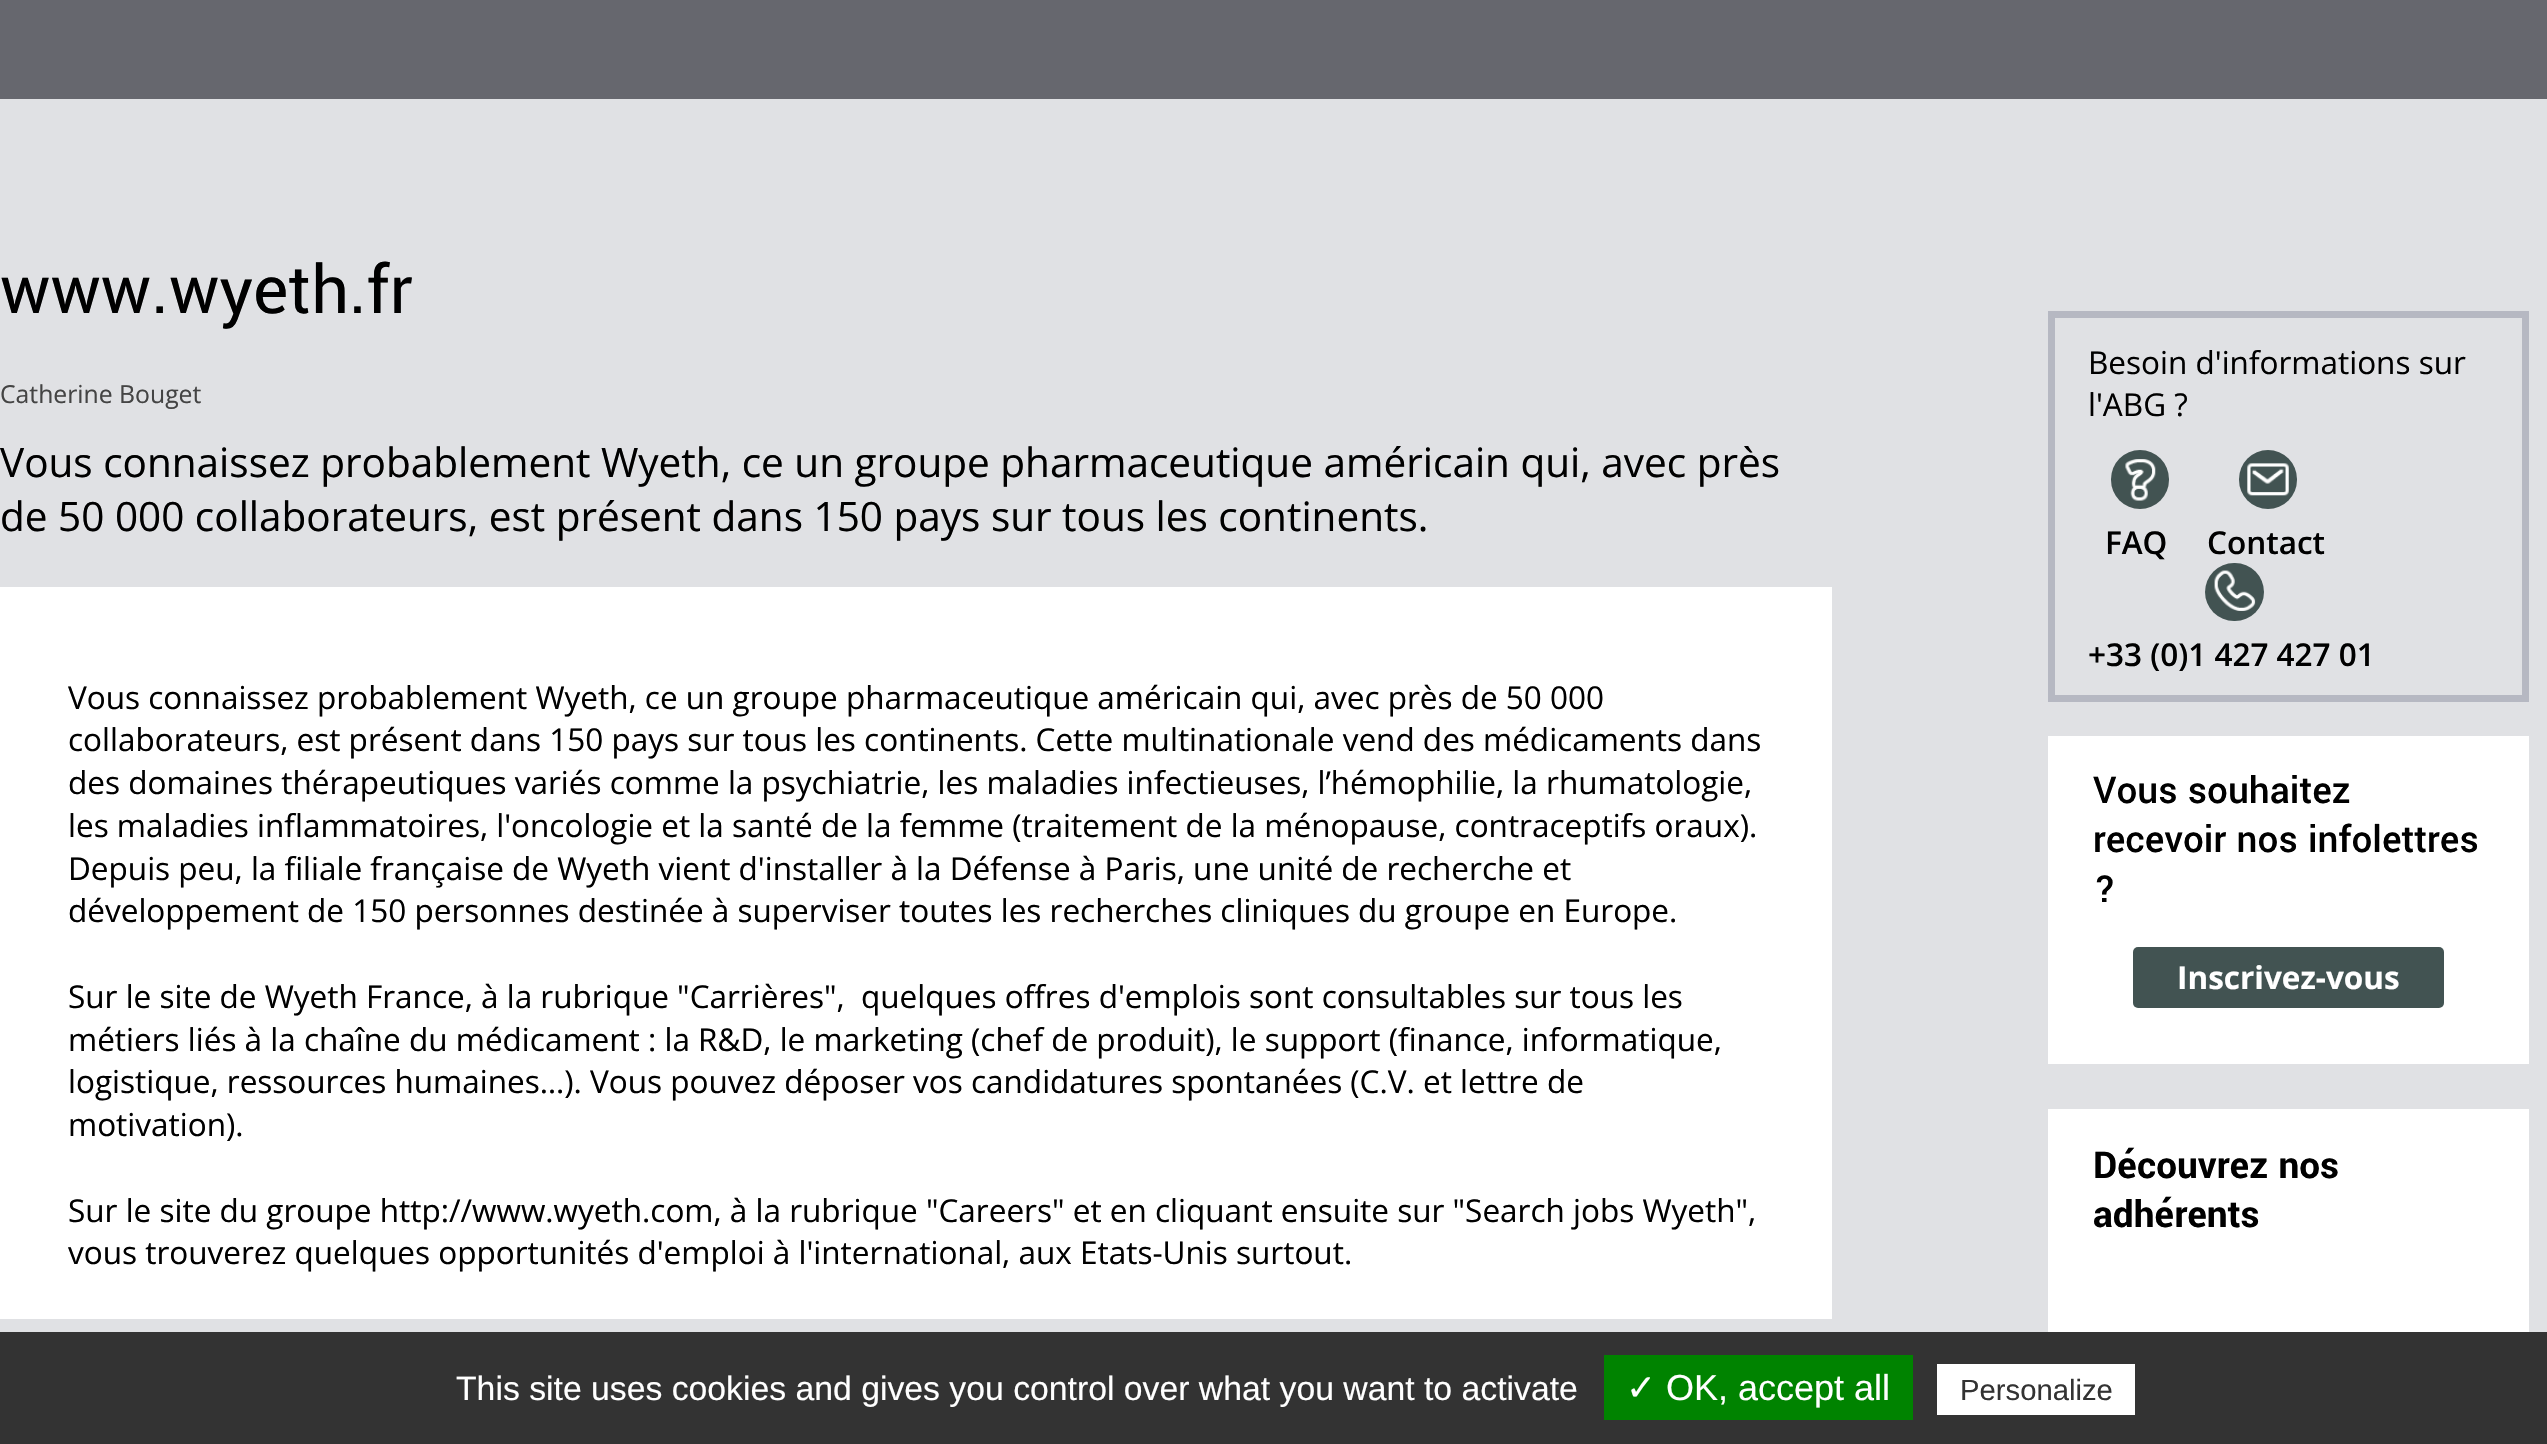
void draw(SkCanvas* canvas) {
	SkPaint paint;
	paint.setAntiAlias(true);
	canvas->clear(0xffe0e1e4);
	paint.setColor(0xff66676e);
	canvas->drawRect(SkRect::MakeXYWH(0, 0, 2547, 99), paint);
	SkFont f1(fontMgr->matchFamilyStyle("Yantramanav", SkFontStyle::Normal()), 74);
	f1.setSubpixel(true);
	paint.setColor(0xff000000);
	canvas->drawString("www.wyeth.fr", 0, 313, f1, paint);
	SkFont f2(fontMgr->matchFamilyStyle("Open Sans", SkFontStyle::Normal()), 24.75);
	f2.setSubpixel(true);
	paint.setColor(0xff444444);
	canvas->drawString("Catherine Bouget", 0, 403, f2, paint);
	SkFont f3(fontMgr->matchFamilyStyle("Open Sans", SkFontStyle::Normal()), 40.5);
	f3.setSubpixel(true);
	paint.setColor(0xff000000);
	canvas->drawString("Vous connaissez probablement Wyeth, ce un groupe pharmaceutique américain qui, avec près", 0, 477, f3, paint);
	canvas->drawString("de 50 000 collaborateurs, est présent dans 150 pays sur tous les continents.", 0, 531, f3, paint);
	paint.setColor(0xffffffff);
	canvas->drawRect(SkRect::MakeXYWH(0, 587, 1832, 732), paint);
	SkFont f4(fontMgr->matchFamilyStyle("Open Sans", SkFontStyle::Normal()), 31.5);
	f4.setSubpixel(true);
	paint.setColor(0xff000000);
	canvas->drawString("Vous connaissez probablement Wyeth, ce un groupe pharmaceutique américain qui, avec près de 50 000", 68, 709, f4, paint);
	canvas->drawString("collaborateurs, est présent dans 150 pays sur tous les continents. Cette multinationale vend des médicaments dans", 68, 751, f4, paint);
	canvas->drawString("des domaines thérapeutiques variés comme la psychiatrie, les maladies infectieuses, l’hémophilie, la rhumatologie,", 68, 794, f4, paint);
	canvas->drawString("les maladies inflammatoires, l'oncologie et la santé de la femme (traitement de la ménopause, contraceptifs oraux).", 68, 837, f4, paint);
	canvas->drawString("Depuis peu, la filiale française de Wyeth vient d'installer à la Défense à Paris, une unité de recherche et", 68, 880, f4, paint);
	canvas->drawString("développement de 150 personnes destinée à superviser toutes les recherches cliniques du groupe en Europe.", 68, 922, f4, paint);
	canvas->drawString("Sur le site de Wyeth France, à la rubrique \"Carrières\",  quelques offres d'emplois sont consultables sur tous les", 68, 1008, f4, paint);
	canvas->drawString("métiers liés à la chaîne du médicament : la R&D, le marketing (chef de produit), le support (finance, informatique,", 68, 1051, f4, paint);
	canvas->drawString("logistique, ressources humaines…). Vous pouvez déposer vos candidatures spontanées (C.V. et lettre de", 68, 1093, f4, paint);
	canvas->drawString("motivation).", 68, 1136, f4, paint);
	canvas->drawString("Sur le site du groupe http://www.wyeth.com, à la rubrique \"Careers\" et en cliquant ensuite sur \"Search jobs Wyeth\",", 68, 1222, f4, paint);
	canvas->drawString("vous trouverez quelques opportunités d'emploi à l'international, aux Etats-Unis surtout.", 68, 1264, f4, paint);
	paint.setStroke(true);
	paint.setStrokeWidth(7);
	paint.setColor(0xffb6b8c2);
	canvas->drawRect(SkRect::MakeXYWH(2051.5, 314.5, 474, 384), paint);
	paint.setStroke(false);
	paint.setColor(0xff000000);
	canvas->drawString("Besoin d'informations sur", 2088, 374, f4, paint);
	canvas->drawString("l'ABG ?", 2088, 416, f4, paint);
	paint.setColor(0xff425352);
	canvas->drawRoundRect(SkRect::MakeXYWH(2111, 450, 58, 59), 29, 29, paint);
	canvas->drawImageRect(SkImages::DeferredFromEncodedData(SkData::MakeFromFileName("img1.png")), SkRect::MakeXYWH(2125, 459, 31, 42), SkSamplingOptions());
	SkFont f5(fontMgr->matchFamilyStyle("Open Sans", SkFontStyle(600, SkFontStyle::kNormal_Width, SkFontStyle::kUpright_Slant)), 31.5);
	f5.setSubpixel(true);
	paint.setColor(0xff000000);
	canvas->drawString("FAQ", 2105, 554, f5, paint);
	paint.setColor(0xff425352);
	canvas->drawRoundRect(SkRect::MakeXYWH(2239, 450, 58, 59), 29, 29, paint);
	canvas->drawImageRect(SkImages::DeferredFromEncodedData(SkData::MakeFromFileName("img2.png")), SkRect::MakeXYWH(2247, 463, 42, 33), SkSamplingOptions());
	paint.setColor(0xff000000);
	canvas->drawString("Contact", 2207, 554, f5, paint);
	paint.setColor(0xff425352);
	canvas->drawRoundRect(SkRect::MakeXYWH(2205, 563, 59, 58), 29, 29, paint);
	canvas->drawImageRect(SkImages::DeferredFromEncodedData(SkData::MakeFromFileName("img3.png")), SkRect::MakeXYWH(2214, 570, 42, 41), SkSamplingOptions());
	paint.setColor(0xff000000);
	canvas->drawString("+33 (0)1 427 427 01", 2088, 666, f5, paint);
	paint.setColor(0xffffffff);
	canvas->drawRect(SkRect::MakeXYWH(2048, 736, 481, 328), paint);
	SkFont f6(fontMgr->matchFamilyStyle("Yantramanav", SkFontStyle(500, SkFontStyle::kNormal_Width, SkFontStyle::kUpright_Slant)), 41);
	f6.setSubpixel(true);
	paint.setColor(0xff000000);
	canvas->drawString("Vous souhaitez", 2093, 803, f6, paint);
	canvas->drawString("recevoir nos infolettres", 2093, 852, f6, paint);
	canvas->drawString("?", 2093, 902, f6, paint);
	paint.setColor(0xff425352);
	canvas->drawRoundRect(SkRect::MakeXYWH(2133, 947, 311, 61), 5, 5, paint);
	SkFont f7(fontMgr->matchFamilyStyle("Open Sans", SkFontStyle::Bold()), 31.5);
	f7.setSubpixel(true);
	paint.setColor(0xffffffff);
	canvas->drawString("Inscrivez-vous", 2177, 989, f7, paint);
	canvas->drawRect(SkRect::MakeXYWH(2048, 1109, 481, 223), paint);
	SkFont f8(fontMgr->matchFamilyStyle("Yantramanav", SkFontStyle::Bold()), 41);
	f8.setSubpixel(true);
	paint.setColor(0xff000000);
	canvas->drawString("Découvrez nos", 2093, 1178, f8, paint);
	canvas->drawString("adhérents", 2093, 1227, f8, paint);
	paint.setColor(0xff333333);
	canvas->drawRect(SkRect::MakeXYWH(0, 1332, 2547, 112), paint);
	SkFont f9(fontMgr->matchFamilyStyle("Liberation Sans", SkFontStyle::Normal()), 33.75);
	f9.setSubpixel(true);
	paint.setColor(0xffffffff);
	canvas->drawString("This site uses cookies and gives you control over what you want to activate", 456, 1400, f9, paint);
	paint.setColor(0xff008300);
	canvas->drawRect(SkRect::MakeXYWH(1604, 1355, 309, 65), paint);
	SkFont f10(fontMgr->matchFamilyStyle("DejaVu Sans", SkFontStyle::Normal()), 36);
	f10.setSubpixel(true);
	paint.setColor(0xffffffff);
	canvas->drawString("✓", 1626, 1400, f10, paint);
	SkFont f11(fontMgr->matchFamilyStyle("Liberation Sans", SkFontStyle::Normal()), 36);
	f11.setSubpixel(true);
	canvas->drawString("OK, accept all", 1666, 1400, f11, paint);
	canvas->drawRect(SkRect::MakeXYWH(1937, 1364, 198, 51), paint);
	SkFont f12(fontMgr->matchFamilyStyle("Liberation Sans", SkFontStyle::Normal()), 29.25);
	f12.setSubpixel(true);
	paint.setColor(0xff333333);
	canvas->drawString("Personalize", 1960, 1400, f12, paint);
}
